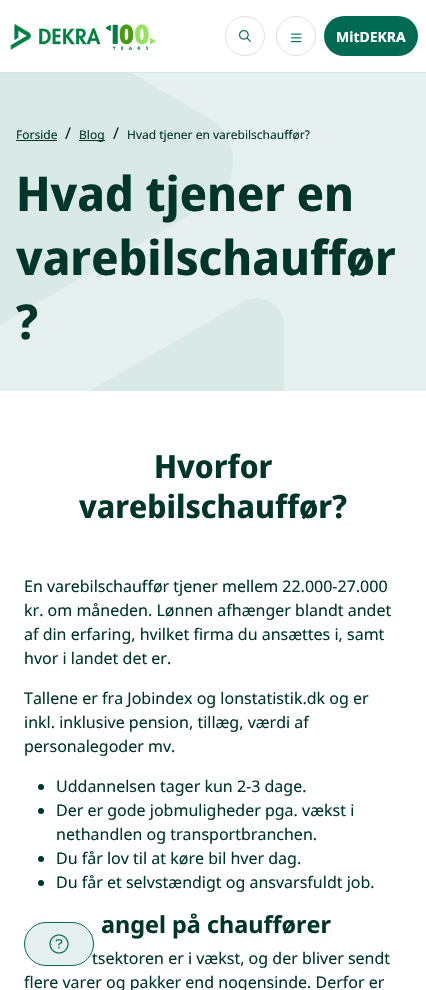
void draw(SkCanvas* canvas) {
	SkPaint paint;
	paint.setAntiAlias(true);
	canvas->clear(0xffffffff);
	paint.setColor(0xffdee2e6);
	canvas->drawRect(SkRect::MakeXYWH(0, 72, 426, 1), paint);
	canvas->drawImageRect(SkImages::DeferredFromEncodedData(SkData::MakeFromFileName("img1.png")), SkRect::MakeXYWH(10, 24, 146, 26), SkSamplingOptions());
	paint.setStroke(true);
	paint.setStrokeWidth(1);
	canvas->drawCircle(245, 36, 19.5, paint);
	canvas->drawImageRect(SkImages::DeferredFromEncodedData(SkData::MakeFromFileName("img2.png")), SkRect::MakeXYWH(239, 30, 12, 12), SkSamplingOptions());
	canvas->drawCircle(296, 36, 19.5, paint);
	canvas->drawImageRect(SkImages::DeferredFromEncodedData(SkData::MakeFromFileName("img3.png")), SkRect::MakeXYWH(291, 33, 11, 10), SkSamplingOptions());
	paint.setStroke(false);
	paint.setColor(0xff006b52);
	canvas->drawRoundRect(SkRect::MakeXYWH(324, 16, 94, 40), 20, 20, paint);
	SkFont f1(fontMgr->matchFamilyStyle("Noto Sans", SkFontStyle::Bold()), 14);
	f1.setSubpixel(true);
	paint.setColor(0xffffffff);
	canvas->drawString("MitDEKRA", 336, 42, f1, paint);
	canvas->drawImageRect(SkImages::DeferredFromEncodedData(SkData::MakeFromFileName("img4.png")), SkRect::MakeXYWH(0, 73, 426, 318), SkSamplingOptions());
	SkFont f2(fontMgr->matchFamilyStyle("Noto Sans", SkFontStyle::Normal()), 12);
	f2.setSubpixel(true);
	paint.setColor(0xff003629);
	canvas->drawString("Forside", 16, 139, f2, paint);
	canvas->drawRect(SkRect::MakeXYWH(16, 140, 41, 1), paint);
	SkFont f3(fontMgr->matchFamilyStyle("Noto Sans", SkFontStyle::Normal()), 16);
	f3.setSubpixel(true);
	canvas->drawString("/", 65, 139, f3, paint);
	canvas->drawRect(SkRect::MakeXYWH(79, 140, 26, 1), paint);
	canvas->drawString("Blog", 79, 139, f2, paint);
	canvas->drawString("/", 113, 139, f3, paint);
	canvas->drawString("Hvad tjener en varebilschauffør?", 127, 139, f2, paint);
	SkFont f4(fontMgr->matchFamilyStyle("Noto Sans Display", SkFontStyle::Bold()), 48);
	f4.setSubpixel(true);
	canvas->drawString("Hvad tjener en", 16, 211, f4, paint);
	canvas->drawString("varebilschauffør", 16, 275, f4, paint);
	canvas->drawString("?", 16, 339, f4, paint);
	SkFont f5(fontMgr->matchFamilyStyle("Noto Sans Display", SkFontStyle::Bold()), 32);
	f5.setSubpixel(true);
	canvas->drawString("Hvorfor", 154, 478, f5, paint);
	canvas->drawString("varebilschauffør?", 79, 518, f5, paint);
	canvas->drawString("En varebilschauffør tjener mellem 22.000-27.000", 24, 592, f3, paint);
	canvas->drawString("kr. om måneden. Lønnen afhænger blandt andet", 24, 616, f3, paint);
	canvas->drawString("af din erfaring, hvilket firma du ansættes i, samt", 24, 640, f3, paint);
	canvas->drawString("hvor i landet det er.", 24, 664, f3, paint);
	canvas->drawString("Tallene er fra Jobindex og lonstatistik.dk og er", 24, 704, f3, paint);
	canvas->drawString("inkl. inklusive pension, tillæg, værdi af", 24, 728, f3, paint);
	canvas->drawString("personalegoder mv.", 24, 752, f3, paint);
	canvas->drawCircle(41, 787, 3, paint);
	canvas->drawString("Uddannelsen tager kun 2-3 dage.", 56, 792, f3, paint);
	canvas->drawCircle(41, 811, 3, paint);
	canvas->drawString("Der er gode jobmuligheder pga. vækst i", 56, 816, f3, paint);
	canvas->drawString("nethandlen og transportbranchen.", 56, 840, f3, paint);
	canvas->drawCircle(41, 859, 3, paint);
	canvas->drawString("Du får lov til at køre bil hver dag.", 56, 864, f3, paint);
	canvas->drawCircle(41, 883, 3, paint);
	canvas->drawString("Du får et selvstændigt og ansvarsfuldt job.", 56, 888, f3, paint);
	SkFont f6(fontMgr->matchFamilyStyle("Noto Sans", SkFontStyle::Bold()), 23.4);
	f6.setSubpixel(true);
	canvas->drawString("angel på chauffører", 101, 933, f6, paint);
	canvas->drawString("tsektoren er i vækst, og der bliver sendt", 92, 964, f3, paint);
	canvas->drawString("flere varer og pakker end nogensinde. Derfor er", 24, 988, f3, paint);
	paint.setColor(0xffe6f0ee);
	canvas->drawRoundRect(SkRect::MakeXYWH(24.5, 922.5, 69, 43), 21.5, 21.5, paint);
	paint.setStroke(true);
	paint.setColor(0xff006b52);
	canvas->drawRoundRect(SkRect::MakeXYWH(24.5, 922.5, 69, 43), 21.5, 21.5, paint);
	canvas->drawImageRect(SkImages::DeferredFromEncodedData(SkData::MakeFromFileName("img5.png")), SkRect::MakeXYWH(49, 934, 20, 20), SkSamplingOptions());
}
